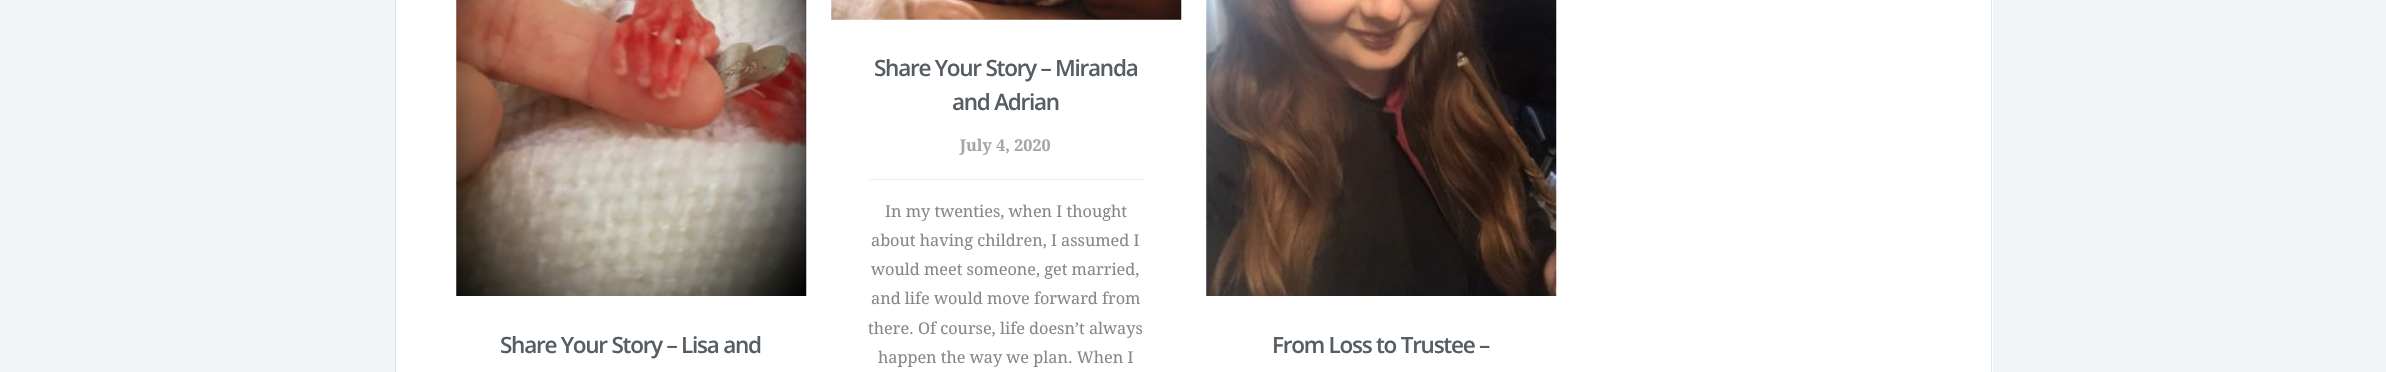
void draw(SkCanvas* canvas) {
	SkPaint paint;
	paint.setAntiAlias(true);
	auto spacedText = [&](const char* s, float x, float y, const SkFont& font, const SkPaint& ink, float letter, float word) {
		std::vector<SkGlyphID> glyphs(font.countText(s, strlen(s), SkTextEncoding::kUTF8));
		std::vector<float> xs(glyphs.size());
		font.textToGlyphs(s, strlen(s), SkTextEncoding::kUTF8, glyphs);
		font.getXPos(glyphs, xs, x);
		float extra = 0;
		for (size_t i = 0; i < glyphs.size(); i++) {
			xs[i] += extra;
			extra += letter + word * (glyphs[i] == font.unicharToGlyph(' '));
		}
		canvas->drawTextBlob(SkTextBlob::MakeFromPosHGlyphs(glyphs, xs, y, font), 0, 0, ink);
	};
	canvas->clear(0xfff2f5f8);
	paint.setColor(0xffffffff);
	canvas->drawRect(SkRect::MakeXYWH(396, 0, 1597, 372), paint);
	paint.setColor(0xffe1e4e7);
	canvas->drawRect(SkRect::MakeXYWH(1991, 0, 1, 372), paint);
	paint.setColor(0xffdfe2e5);
	canvas->drawRect(SkRect::MakeXYWH(395, 0, 1, 372), paint);
	canvas->drawImageRect(SkImages::DeferredFromEncodedData(SkData::MakeFromFileName("img1.png")), SkRect::MakeXYWH(456, 0, 351, 296), SkSamplingOptions());
	SkFont f1(fontMgr->matchFamilyStyle("Open Sans", SkFontStyle(600, SkFontStyle::kNormal_Width, SkFontStyle::kUpright_Slant)), 22.5);
	f1.setSubpixel(true);
	paint.setColor(0xff565d63);
	spacedText("Share Your Story – Lisa and", 500, 353, f1, paint, -1.25, 0);
	canvas->drawImageRect(SkImages::DeferredFromEncodedData(SkData::MakeFromFileName("img2.png")), SkRect::MakeXYWH(831, 0, 351, 20), SkSamplingOptions());
	spacedText("Share Your Story – Miranda", 874, 76, f1, paint, -1.25, 0);
	spacedText("and Adrian", 952, 110, f1, paint, -1.25, 0);
	paint.setColor(0xffededed);
	canvas->drawRect(SkRect::MakeXYWH(869, 179, 275, 1), paint);
	SkFont f2(fontMgr->matchFamilyStyle("Droid Serif", SkFontStyle::Bold()), 16.25);
	f2.setSubpixel(true);
	paint.setColor(0xffa6a6a6);
	canvas->drawString("July 4, 2020", 960, 151, f2, paint);
	SkFont f3(fontMgr->matchFamilyStyle("Droid Serif", SkFontStyle::Normal()), 16.25);
	f3.setSubpixel(true);
	paint.setColor(0xff878787);
	canvas->drawString("In my twenties, when I thought", 885, 217, f3, paint);
	canvas->drawString("about having children, I assumed I", 871, 246, f3, paint);
	canvas->drawString("would meet someone, get married,", 871, 275, f3, paint);
	canvas->drawString("and life would move forward from", 871, 304, f3, paint);
	canvas->drawString("there. Of course, life doesn’t always", 868, 334, f3, paint);
	canvas->drawString("happen the way we plan. When I", 878, 363, f3, paint);
	canvas->drawImageRect(SkImages::DeferredFromEncodedData(SkData::MakeFromFileName("img3.png")), SkRect::MakeXYWH(1206, 0, 351, 296), SkSamplingOptions());
	paint.setColor(0xff565d63);
	spacedText("From Loss to Trustee –", 1272, 353, f1, paint, -1.25, 0);
}
